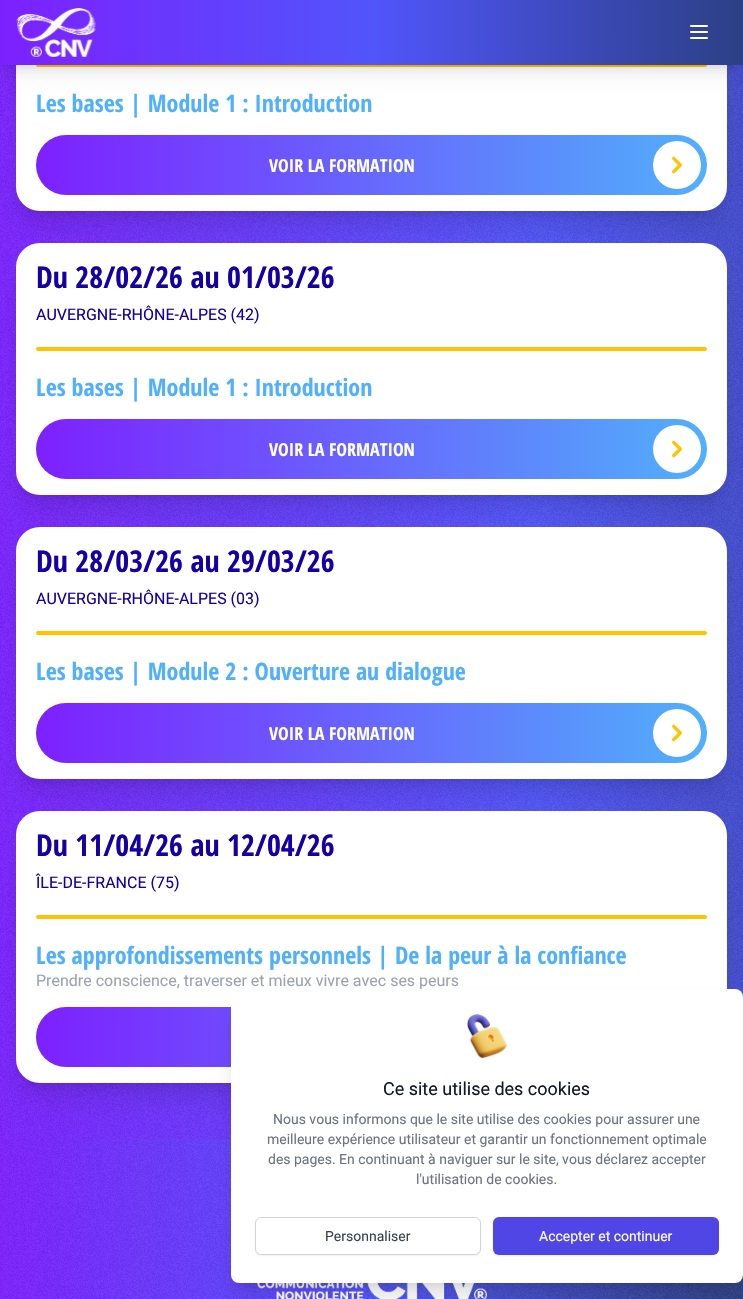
void draw(SkCanvas* canvas) {
	SkPaint paint;
	paint.setAntiAlias(true);
	canvas->clear(0xffffffff);
	{
		const SkColor colors[] = {0xff7d20ff, 0xff5155fb, 0xff2c4085};
		const float stops[] = {0, 0.5, 1};
		const SkPoint ends[] = {{-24, 165}, {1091, 165}};
		paint.setShader(SkGradientShader::MakeLinear(ends, colors, stops, 3, SkTileMode::kClamp));
		paint.setAlpha(255);
	}
	canvas->drawRect(SkRect::MakeXYWH(0, 65, 743, 1074), paint);
	canvas->drawImageRect(SkImages::DeferredFromEncodedData(SkData::MakeFromFileName("img3.png")), SkRect::MakeXYWH(0, 65, 743, 1074), SkSamplingOptions());
	paint.setShader(nullptr);
	paint.setColor(0x1a000000);
	paint.setMaskFilter(SkMaskFilter::MakeBlur(kNormal_SkBlurStyle, 5));
	canvas->drawRoundRect(SkRect::MakeXYWH(22, -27, 699, 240), 18, 18, paint);
	paint.setMaskFilter(nullptr);
	paint.setMaskFilter(SkMaskFilter::MakeBlur(kNormal_SkBlurStyle, 12.5));
	canvas->drawRoundRect(SkRect::MakeXYWH(21, -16, 701, 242), 19, 19, paint);
	paint.setMaskFilter(nullptr);
	paint.setColor(0xffffffff);
	canvas->drawRoundRect(SkRect::MakeXYWH(16, -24, 711, 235), 24, 24, paint);
	paint.setColor(0xffffc400);
	canvas->drawRoundRect(SkRect::MakeXYWH(36, 63, 671, 4), 2, 2, paint);
	paint.setColor(0x1a000000);
	paint.setMaskFilter(SkMaskFilter::MakeBlur(kNormal_SkBlurStyle, 3));
	canvas->drawRect(SkRect::MakeXYWH(4, 8, 735, 57), paint);
	paint.setMaskFilter(nullptr);
	paint.setMaskFilter(SkMaskFilter::MakeBlur(kNormal_SkBlurStyle, 7.5));
	canvas->drawRect(SkRect::MakeXYWH(3, 13, 737, 59), paint);
	paint.setMaskFilter(nullptr);
	{
		const SkColor colors[] = {0xff7d20ff, 0xff5155fb, 0xff2c4085};
		const float stops[] = {0, 0.5, 1};
		const SkPoint ends[] = {{0, 33}, {743, 32}};
		paint.setShader(SkGradientShader::MakeLinear(ends, colors, stops, 3, SkTileMode::kClamp));
		paint.setAlpha(255);
	}
	canvas->drawRect(SkRect::MakeXYWH(0, 0, 743, 65), paint);
	canvas->drawImageRect(SkImages::DeferredFromEncodedData(SkData::MakeFromFileName("img1.png")), SkRect::MakeXYWH(16, 8, 80, 49), SkSamplingOptions());
	canvas->drawImageRect(SkImages::DeferredFromEncodedData(SkData::MakeFromFileName("img2.png")), SkRect::MakeXYWH(690, 25, 18, 14), SkSamplingOptions());
	SkFont f1(fontMgr->matchFamilyStyle("Open Sans Condensed", SkFontStyle::Bold()), 24);
	f1.setSubpixel(true);
	paint.setShader(nullptr);
	paint.setColor(0xff51b0fb);
	canvas->drawString("Les bases | Module 1 : Introduction", 36, 112, f1, paint);
	{
		const SkColor colors[] = {0xff7d20ff, 0xff51b0fb};
		const float stops[] = {0, 1};
		const SkPoint ends[] = {{36, 165}, {707, 165}};
		paint.setShader(SkGradientShader::MakeLinear(ends, colors, stops, 2, SkTileMode::kClamp));
		paint.setAlpha(255);
	}
	canvas->drawRoundRect(SkRect::MakeXYWH(36, 135, 671, 60), 30, 30, paint);
	SkFont f2(fontMgr->matchFamilyStyle("Open Sans Condensed", SkFontStyle::Bold()), 18);
	f2.setSubpixel(true);
	paint.setShader(nullptr);
	paint.setColor(0xffffffff);
	canvas->drawString("VOIR LA FORMATION", 269, 172, f2, paint);
	canvas->drawCircle(677, 165, 24, paint);
	canvas->drawImageRect(SkImages::DeferredFromEncodedData(SkData::MakeFromFileName("img4.png")), SkRect::MakeXYWH(672, 156, 10, 18), SkSamplingOptions());
	paint.setColor(0x1a000000);
	paint.setMaskFilter(SkMaskFilter::MakeBlur(kNormal_SkBlurStyle, 5));
	canvas->drawRoundRect(SkRect::MakeXYWH(22, 257, 699, 240), 18, 18, paint);
	paint.setMaskFilter(nullptr);
	paint.setMaskFilter(SkMaskFilter::MakeBlur(kNormal_SkBlurStyle, 12.5));
	canvas->drawRoundRect(SkRect::MakeXYWH(21, 268, 701, 242), 19, 19, paint);
	paint.setMaskFilter(nullptr);
	paint.setColor(0xffffffff);
	canvas->drawRoundRect(SkRect::MakeXYWH(16, 243, 711, 252), 24, 24, paint);
	SkFont f3(fontMgr->matchFamilyStyle("Open Sans Condensed", SkFontStyle::Bold()), 30);
	f3.setSubpixel(true);
	paint.setColor(0xff1500a5);
	canvas->drawString("Du 28/02/26 au 01/03/26", 36, 288, f3, paint);
	SkFont f4(fontMgr->matchFamilyStyle("Roboto", SkFontStyle::Normal()), 16);
	f4.setSubpixel(true);
	canvas->drawString("AUVERGNE-RHÔNE-ALPES (42)", 36, 320, f4, paint);
	paint.setColor(0xffffc400);
	canvas->drawRoundRect(SkRect::MakeXYWH(36, 347, 671, 4), 2, 2, paint);
	paint.setColor(0xff51b0fb);
	canvas->drawString("Les bases | Module 1 : Introduction", 36, 396, f1, paint);
	{
		const SkColor colors[] = {0xff7d20ff, 0xff51b0fb};
		const float stops[] = {0, 1};
		const SkPoint ends[] = {{36, 449}, {707, 449}};
		paint.setShader(SkGradientShader::MakeLinear(ends, colors, stops, 2, SkTileMode::kClamp));
		paint.setAlpha(255);
	}
	canvas->drawRoundRect(SkRect::MakeXYWH(36, 419, 671, 60), 30, 30, paint);
	paint.setShader(nullptr);
	paint.setColor(0xffffffff);
	canvas->drawString("VOIR LA FORMATION", 269, 456, f2, paint);
	canvas->drawCircle(677, 449, 24, paint);
	canvas->drawImageRect(SkImages::DeferredFromEncodedData(SkData::MakeFromFileName("img4.png")), SkRect::MakeXYWH(672, 440, 10, 18), SkSamplingOptions());
	paint.setColor(0x1a000000);
	paint.setMaskFilter(SkMaskFilter::MakeBlur(kNormal_SkBlurStyle, 5));
	canvas->drawRoundRect(SkRect::MakeXYWH(22, 541, 699, 240), 18, 18, paint);
	paint.setMaskFilter(nullptr);
	paint.setMaskFilter(SkMaskFilter::MakeBlur(kNormal_SkBlurStyle, 12.5));
	canvas->drawRoundRect(SkRect::MakeXYWH(21, 552, 701, 242), 19, 19, paint);
	paint.setMaskFilter(nullptr);
	paint.setColor(0xffffffff);
	canvas->drawRoundRect(SkRect::MakeXYWH(16, 527, 711, 252), 24, 24, paint);
	paint.setColor(0xff1500a5);
	canvas->drawString("Du 28/03/26 au 29/03/26", 36, 572, f3, paint);
	canvas->drawString("AUVERGNE-RHÔNE-ALPES (03)", 36, 604, f4, paint);
	paint.setColor(0xffffc400);
	canvas->drawRoundRect(SkRect::MakeXYWH(36, 631, 671, 4), 2, 2, paint);
	paint.setColor(0xff51b0fb);
	canvas->drawString("Les bases | Module 2 : Ouverture au dialogue", 36, 680, f1, paint);
	{
		const SkColor colors[] = {0xff7d20ff, 0xff51b0fb};
		const float stops[] = {0, 1};
		const SkPoint ends[] = {{36, 733}, {707, 733}};
		paint.setShader(SkGradientShader::MakeLinear(ends, colors, stops, 2, SkTileMode::kClamp));
		paint.setAlpha(255);
	}
	canvas->drawRoundRect(SkRect::MakeXYWH(36, 703, 671, 60), 30, 30, paint);
	paint.setShader(nullptr);
	paint.setColor(0xffffffff);
	canvas->drawString("VOIR LA FORMATION", 269, 740, f2, paint);
	canvas->drawCircle(677, 733, 24, paint);
	canvas->drawImageRect(SkImages::DeferredFromEncodedData(SkData::MakeFromFileName("img4.png")), SkRect::MakeXYWH(672, 724, 10, 18), SkSamplingOptions());
	paint.setColor(0x1a000000);
	paint.setMaskFilter(SkMaskFilter::MakeBlur(kNormal_SkBlurStyle, 5));
	canvas->drawRoundRect(SkRect::MakeXYWH(22, 825, 699, 260), 18, 18, paint);
	paint.setMaskFilter(nullptr);
	paint.setMaskFilter(SkMaskFilter::MakeBlur(kNormal_SkBlurStyle, 12.5));
	canvas->drawRoundRect(SkRect::MakeXYWH(21, 836, 701, 262), 19, 19, paint);
	paint.setMaskFilter(nullptr);
	paint.setColor(0xffffffff);
	canvas->drawRoundRect(SkRect::MakeXYWH(16, 811, 711, 272), 24, 24, paint);
	paint.setColor(0xff1500a5);
	canvas->drawString("Du 11/04/26 au 12/04/26", 36, 856, f3, paint);
	canvas->drawString("ÎLE-DE-FRANCE (75)", 36, 888, f4, paint);
	paint.setColor(0xffffc400);
	canvas->drawRoundRect(SkRect::MakeXYWH(36, 915, 671, 4), 2, 2, paint);
	paint.setColor(0xff51b0fb);
	canvas->drawString("Les approfondissements personnels | De la peur à la confiance", 36, 964, f1, paint);
	paint.setColor(0xff9ca3af);
	canvas->drawString("Prendre conscience, traverser et mieux vivre avec ses peurs", 36, 986, f4, paint);
	{
		const SkColor colors[] = {0xff7d20ff, 0xff51b0fb};
		const float stops[] = {0, 1};
		const SkPoint ends[] = {{36, 1037}, {707, 1037}};
		paint.setShader(SkGradientShader::MakeLinear(ends, colors, stops, 2, SkTileMode::kClamp));
		paint.setAlpha(255);
	}
	canvas->drawRoundRect(SkRect::MakeXYWH(36, 1007, 671, 60), 30, 30, paint);
	{
		const SkColor colors[] = {0xff7d20ff, 0xff5155fb, 0xff2c4085};
		const float stops[] = {0, 0.5, 1};
		const SkPoint ends[] = {{0, 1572}, {743, 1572}};
		paint.setShader(SkGradientShader::MakeLinear(ends, colors, stops, 3, SkTileMode::kClamp));
		paint.setAlpha(255);
	}
	canvas->drawRect(SkRect::MakeXYWH(0, 1139, 743, 160), paint);
	canvas->drawImageRect(SkImages::DeferredFromEncodedData(SkData::MakeFromFileName("img6.png")), SkRect::MakeXYWH(0, 1139, 743, 160), SkSamplingOptions());
	canvas->drawImageRect(SkImages::DeferredFromEncodedData(SkData::MakeFromFileName("img7.png")), SkRect::MakeXYWH(257, 1283, 230, 16), SkSamplingOptions());
	paint.setShader(nullptr);
	paint.setColor(0x1a000000);
	paint.setMaskFilter(SkMaskFilter::MakeBlur(kNormal_SkBlurStyle, 5));
	canvas->drawRoundRect(SkRect::MakeXYWH(237, 1003, 500, 282), 2, 2, paint);
	paint.setMaskFilter(nullptr);
	paint.setMaskFilter(SkMaskFilter::MakeBlur(kNormal_SkBlurStyle, 12.5));
	canvas->drawRoundRect(SkRect::MakeXYWH(236, 1014, 502, 284), 3, 3, paint);
	paint.setMaskFilter(nullptr);
	paint.setColor(0xffffffff);
	canvas->drawRoundRect(SkRect::MakeXYWH(231, 989, 512, 294), 8, 8, paint);
	canvas->drawImageRect(SkImages::DeferredFromEncodedData(SkData::MakeFromFileName("img5.png")), SkRect::MakeXYWH(466, 1014, 42, 45), SkSamplingOptions());
	SkFont f5(fontMgr->matchFamilyStyle("Roboto", SkFontStyle::Normal()), 18);
	f5.setSubpixel(true);
	paint.setColor(0xff111827);
	canvas->drawString("Ce site utilise des cookies", 383, 1095, f5, paint);
	SkFont f6(fontMgr->matchFamilyStyle("Roboto", SkFontStyle::Normal()), 14);
	f6.setSubpixel(true);
	paint.setColor(0xff6b7280);
	canvas->drawString("Nous vous informons que le site utilise des cookies pour assurer une", 273, 1124, f6, paint);
	canvas->drawString("meilleure expérience utilisateur et garantir un fonctionnement optimale", 267, 1144, f6, paint);
	canvas->drawString("des pages. En continuant à naviguer sur le site, vous déclarez accepter", 268, 1164, f6, paint);
	canvas->drawString("l'utilisation de cookies.", 416, 1184, f6, paint);
	paint.setColor(0x0d000000);
	paint.setMaskFilter(SkMaskFilter::MakeBlur(kNormal_SkBlurStyle, 1));
	canvas->drawRoundRect(SkRect::MakeXYWH(255, 1218, 226, 38), 6, 6, paint);
	paint.setMaskFilter(nullptr);
	paint.setColor(0xffffffff);
	canvas->drawRoundRect(SkRect::MakeXYWH(255.5, 1217.5, 225, 37), 5.5, 5.5, paint);
	paint.setStroke(true);
	paint.setStrokeWidth(1);
	paint.setColor(0xffd1d5db);
	canvas->drawRoundRect(SkRect::MakeXYWH(255.5, 1217.5, 225, 37), 5.5, 5.5, paint);
	paint.setStroke(false);
	paint.setColor(0xff374151);
	canvas->drawString("Personnaliser", 325, 1241, f6, paint);
	paint.setColor(0x0d000000);
	paint.setMaskFilter(SkMaskFilter::MakeBlur(kNormal_SkBlurStyle, 1));
	canvas->drawRoundRect(SkRect::MakeXYWH(493, 1218, 226, 38), 6, 6, paint);
	paint.setMaskFilter(nullptr);
	paint.setColor(0xff4f46e5);
	canvas->drawRoundRect(SkRect::MakeXYWH(493, 1217, 226, 38), 6, 6, paint);
	paint.setColor(0xffffffff);
	canvas->drawString("Accepter et continuer", 539, 1241, f6, paint);
}
